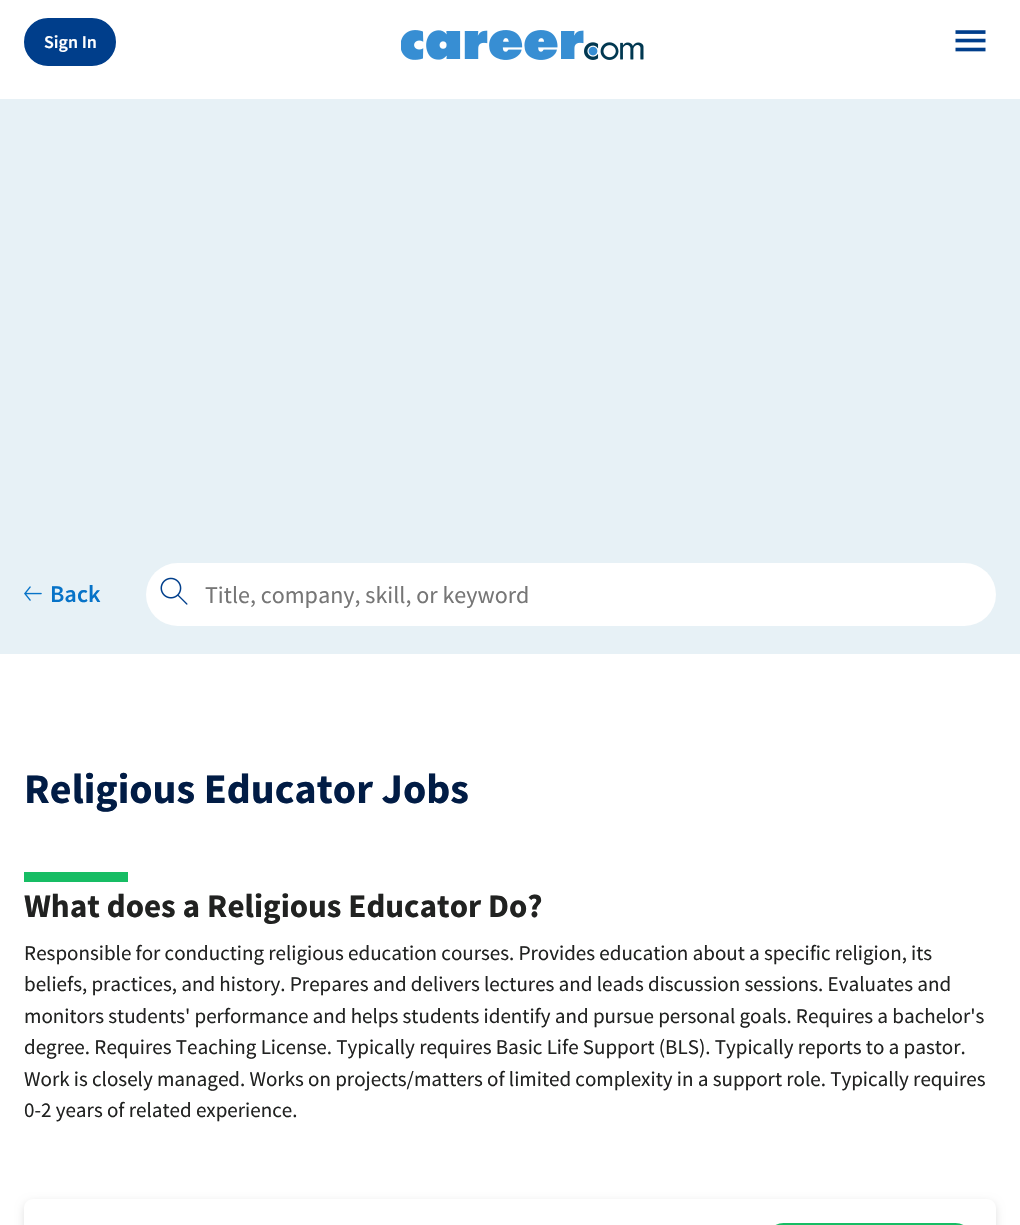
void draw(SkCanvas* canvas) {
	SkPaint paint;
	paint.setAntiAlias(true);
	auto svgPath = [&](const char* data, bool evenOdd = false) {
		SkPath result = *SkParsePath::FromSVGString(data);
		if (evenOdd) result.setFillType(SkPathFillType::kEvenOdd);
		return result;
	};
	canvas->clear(0xffffffff);
	paint.setColor(0xff003e8b);
	canvas->drawRoundRect(SkRect::MakeXYWH(25, 19, 90, 46), 23, 23, paint);
	paint.setStroke(true);
	paint.setStrokeWidth(2);
	canvas->drawRoundRect(SkRect::MakeXYWH(25, 19, 90, 46), 23, 23, paint);
	SkFont f1(fontMgr->matchFamilyStyle("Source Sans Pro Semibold", SkFontStyle(600, SkFontStyle::kNormal_Width, SkFontStyle::kUpright_Slant)), 18);
	f1.setSubpixel(true);
	paint.setStroke(false);
	paint.setColor(0xffffffff);
	canvas->drawString("Sign In", 44, 48, f1, paint);
	canvas->drawImageRect(SkImages::DeferredFromEncodedData(SkData::MakeFromFileName("img1.png")), SkRect::MakeXYWH(401, 30, 243, 30), SkSamplingOptions());
	canvas->drawImageRect(SkImages::DeferredFromEncodedData(SkData::MakeFromFileName("img2.png")), SkRect::MakeXYWH(955, 30, 31, 22), SkSamplingOptions());
	paint.setColor(0xffe7f1f6);
	canvas->drawRect(SkRect::MakeXYWH(0, 99, 1020, 555), paint);
	canvas->drawImageRect(SkImages::DeferredFromEncodedData(SkData::MakeFromFileName("img3.png")), SkRect::MakeXYWH(24, 586, 18, 15), SkSamplingOptions());
	SkFont f2(fontMgr->matchFamilyStyle("Source Sans Pro Semibold", SkFontStyle(600, SkFontStyle::kNormal_Width, SkFontStyle::kUpright_Slant)), 24);
	f2.setSubpixel(true);
	paint.setColor(0xff0773c8);
	canvas->drawString("Back", 50, 602, f2, paint);
	paint.setColor(0xffffffff);
	canvas->drawRoundRect(SkRect::MakeXYWH(146, 563, 850, 63), 31.5, 31.5, paint);
	canvas->drawImageRect(SkImages::DeferredFromEncodedData(SkData::MakeFromFileName("img4.png")), SkRect::MakeXYWH(160, 577, 28, 28), SkSamplingOptions());
	SkFont f3(fontMgr->matchFamilyStyle("Source Sans Pro", SkFontStyle::Normal()), 24);
	f3.setSubpixel(true);
	paint.setColor(0xff767676);
	canvas->drawString("Title, company, skill, or keyword", 205, 603, f3, paint);
	SkFont f4(fontMgr->matchFamilyStyle("Source Sans Pro", SkFontStyle::Bold()), 42);
	f4.setSubpixel(true);
	paint.setColor(0xff011c45);
	canvas->drawString("Religious Educator Jobs", 24, 803, f4, paint);
	paint.setColor(0xff17bd64);
	canvas->drawRect(SkRect::MakeXYWH(24, 872, 104, 10), paint);
	SkFont f5(fontMgr->matchFamilyStyle("Source Sans Pro", SkFontStyle::Bold()), 33);
	f5.setSubpixel(true);
	paint.setColor(0xff212221);
	canvas->drawString("What does a Religious Educator Do?", 24, 917, f5, paint);
	SkFont f6(fontMgr->matchFamilyStyle("Source Sans Pro", SkFontStyle::Normal()), 21);
	f6.setSubpixel(true);
	canvas->drawString("Responsible for conducting religious education courses. Provides education about a specific religion, its", 24, 960, f6, paint);
	canvas->drawString("beliefs, practices, and history. Prepares and delivers lectures and leads discussion sessions. Evaluates and", 24, 991, f6, paint);
	canvas->drawString("monitors students' performance and helps students identify and pursue personal goals. Requires a bachelor's", 24, 1023, f6, paint);
	canvas->drawString("degree. Requires Teaching License. Typically requires Basic Life Support (BLS). Typically reports to a pastor.", 24, 1054, f6, paint);
	canvas->drawString("Work is closely managed. Works on projects/matters of limited complexity in a support role. Typically requires", 24, 1086, f6, paint);
	canvas->drawString("0-2 years of related experience.", 24, 1117, f6, paint);
	canvas->save();
	canvas->clipPath(svgPath("M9 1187H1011V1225H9ZM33 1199H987C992 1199 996 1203 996 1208V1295C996 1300 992 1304 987 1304H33C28 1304 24 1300 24 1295V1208C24 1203 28 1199 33 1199Z", true), true);
	paint.setColor(0x1f000000);
	paint.setMaskFilter(SkMaskFilter::MakeBlur(kNormal_SkBlurStyle, 4.5));
	canvas->drawRoundRect(SkRect::MakeXYWH(24, 1202, 972, 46), 9, 9, paint);
	paint.setMaskFilter(nullptr);
	canvas->restore();
	paint.setStroke(true);
	paint.setColor(0xff17bd64);
	canvas->drawRoundRect(SkRect::MakeXYWH(768, 1224, 203, 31), 27.5, 27.5, paint);
}
